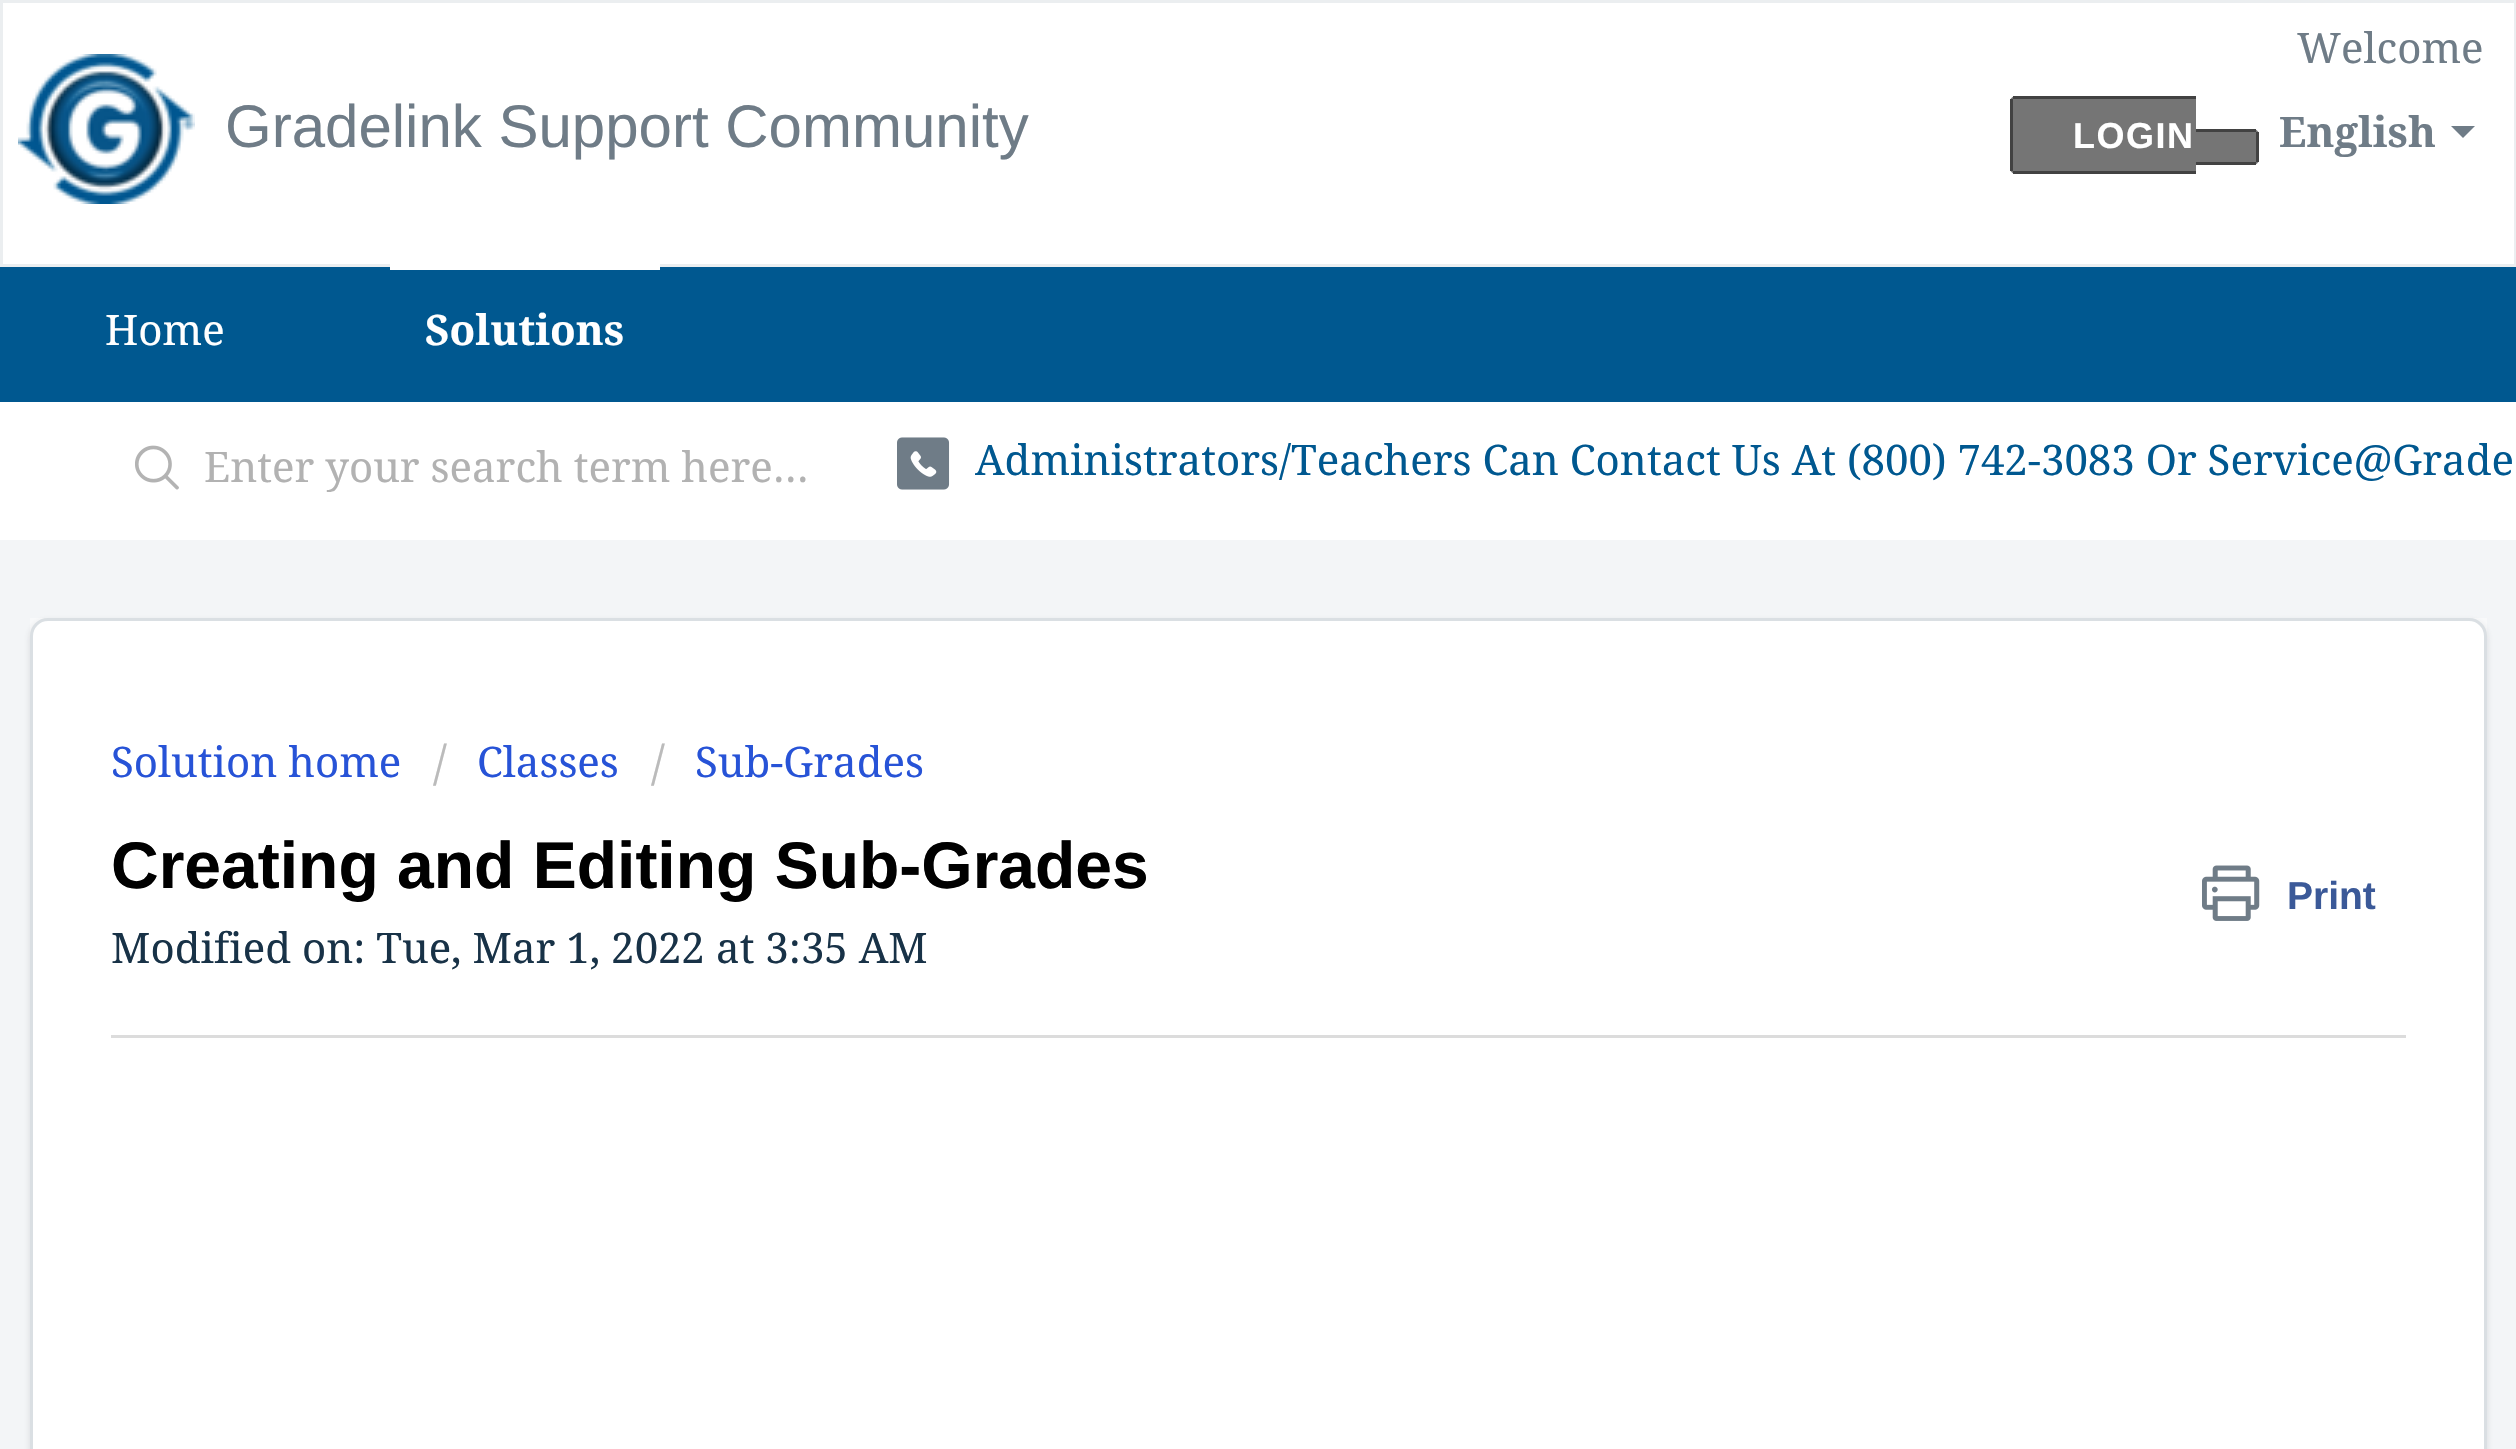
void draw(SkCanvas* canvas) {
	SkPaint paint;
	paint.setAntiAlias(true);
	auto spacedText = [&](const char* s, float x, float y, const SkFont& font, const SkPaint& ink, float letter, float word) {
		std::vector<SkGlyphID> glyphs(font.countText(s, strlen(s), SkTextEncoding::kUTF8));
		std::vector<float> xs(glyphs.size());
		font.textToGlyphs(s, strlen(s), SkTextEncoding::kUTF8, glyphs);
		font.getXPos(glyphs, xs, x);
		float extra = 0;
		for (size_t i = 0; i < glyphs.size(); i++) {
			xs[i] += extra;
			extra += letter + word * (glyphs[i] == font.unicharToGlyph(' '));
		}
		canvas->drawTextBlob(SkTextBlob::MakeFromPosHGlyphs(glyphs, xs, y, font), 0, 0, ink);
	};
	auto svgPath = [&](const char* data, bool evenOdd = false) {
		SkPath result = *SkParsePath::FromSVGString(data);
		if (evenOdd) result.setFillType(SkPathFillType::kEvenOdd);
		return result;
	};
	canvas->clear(0xfff3f5f7);
	paint.setColor(0xffffffff);
	canvas->drawRect(SkRect::MakeXYWH(1.5, 1.5, 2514, 264), paint);
	paint.setStroke(true);
	paint.setStrokeWidth(3);
	paint.setColor(0xffebeef0);
	canvas->drawRect(SkRect::MakeXYWH(1.5, 1.5, 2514, 264), paint);
	canvas->drawImageRect(SkImages::DeferredFromEncodedData(SkData::MakeFromFileName("img1.png")), SkRect::MakeXYWH(18, 54, 177, 150), SkSamplingOptions());
	SkFont f1(fontMgr->matchFamilyStyle("Liberation Sans", SkFontStyle::Normal()), 60);
	f1.setSubpixel(true);
	paint.setStroke(false);
	paint.setColor(0xff6f7c87);
	canvas->drawString("Gradelink Support Community", 225, 147, f1, paint);
	SkFont f2(fontMgr->matchFamilyStyle("Droid Serif", SkFontStyle::Normal()), 42);
	f2.setSubpixel(true);
	canvas->drawString("Welcome", 2297, 63, f2, paint);
	paint.setColor(0xff757575);
	canvas->drawPath(svgPath("M2016 96H2196V174H2016C2012.5 174 2010 171.5 2010 168V102C2010 98.5 2012.5 96 2016 96Z"), paint);
	SkFont f3(fontMgr->matchFamilyStyle("Liberation Sans", SkFontStyle::Bold()), 36);
	f3.setSubpixel(true);
	paint.setColor(0xffffffff);
	spacedText("LOGIN", 2073, 148, f3, paint, 1.5, 0);
	paint.setColor(0xff424242);
	canvas->drawRect(SkRect::MakeXYWH(2013, 96, 183, 3), paint);
	canvas->drawRect(SkRect::MakeXYWH(2013, 171, 183, 3), paint);
	canvas->drawRect(SkRect::MakeXYWH(2010, 99, 3, 72), paint);
	paint.setColor(0xff757575);
	canvas->drawPath(svgPath("M2196 129H2253C2256.5 129 2259 131.5 2259 135V159C2259 162.5 2256.5 165 2253 165H2196Z"), paint);
	paint.setColor(0xff424242);
	canvas->drawRect(SkRect::MakeXYWH(2196, 129, 60, 3), paint);
	canvas->drawRect(SkRect::MakeXYWH(2256, 132, 3, 30), paint);
	canvas->drawRect(SkRect::MakeXYWH(2196, 162, 60, 3), paint);
	SkFont f4(fontMgr->matchFamilyStyle("Droid Serif", SkFontStyle::Bold()), 42);
	f4.setSubpixel(true);
	paint.setColor(0xff6f7c87);
	canvas->drawString("English", 2279, 147, f4, paint);
	canvas->drawPath(svgPath("M2451 126H2475L2463 138Z"), paint);
	paint.setColor(0xff005890);
	canvas->drawRect(SkRect::MakeXYWH(0, 267, 2516, 135), paint);
	paint.setColor(0xffffffff);
	canvas->drawString("Home", 105, 345, f2, paint);
	canvas->drawRect(SkRect::MakeXYWH(390, 264, 270, 6), paint);
	canvas->drawString("Solutions", 425, 345, f4, paint);
	canvas->drawRect(SkRect::MakeXYWH(0, 402, 2516, 138), paint);
	canvas->drawImageRect(SkImages::DeferredFromEncodedData(SkData::MakeFromFileName("img2.png")), SkRect::MakeXYWH(135, 445, 44, 45), SkSamplingOptions());
	paint.setColor(0xffb2b2b2);
	canvas->drawString("Enter your search term here...", 204, 482, f2, paint);
	canvas->drawImageRect(SkImages::DeferredFromEncodedData(SkData::MakeFromFileName("img3.png")), SkRect::MakeXYWH(897, 437, 53, 53), SkSamplingOptions());
	paint.setColor(0xff005890);
	canvas->drawString("Administrators/Teachers Can Contact Us At (800) 742-3083 Or Service@Grade", 975, 475, f2, paint);
	paint.setColor(0xfff8f9fa);
	canvas->drawRect(SkRect::MakeXYWH(30, 618, 2457, 18), paint);
	paint.setColor(0x263f3f44);
	paint.setMaskFilter(SkMaskFilter::MakeBlur(kNormal_SkBlurStyle, 3));
	canvas->drawRoundRect(SkRect::MakeXYWH(30, 621, 2457, 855), 18, 18, paint);
	paint.setMaskFilter(nullptr);
	paint.setColor(0xffffffff);
	canvas->drawRoundRect(SkRect::MakeXYWH(31.5, 619.5, 2454, 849), 16.5, 16.5, paint);
	paint.setStroke(true);
	paint.setColor(0xffdadfe3);
	canvas->drawRoundRect(SkRect::MakeXYWH(31.5, 619.5, 2454, 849), 16.5, 16.5, paint);
	paint.setStroke(false);
	paint.setColor(0xff2753d7);
	canvas->drawString("Solution home", 111, 777, f2, paint);
	SkFont f5(fontMgr->matchFamilyStyle("Droid Serif", SkFontStyle::Normal()), 48);
	f5.setSubpixel(true);
	paint.setColor(0xffbbbbbb);
	canvas->drawString("/", 433, 780, f5, paint);
	paint.setColor(0xff2753d7);
	canvas->drawString("Classes", 477, 777, f2, paint);
	paint.setColor(0xffbbbbbb);
	canvas->drawString("/", 651, 780, f5, paint);
	paint.setColor(0xff2753d7);
	canvas->drawString("Sub-Grades", 695, 777, f2, paint);
	SkFont f6(fontMgr->matchFamilyStyle("Liberation Sans", SkFontStyle::Bold()), 66);
	f6.setSubpixel(true);
	paint.setColor(0xff000000);
	canvas->drawString("Creating and Editing Sub-Grades", 111, 888, f6, paint);
	canvas->drawImageRect(SkImages::DeferredFromEncodedData(SkData::MakeFromFileName("img4.png")), SkRect::MakeXYWH(2202, 865, 58, 56), SkSamplingOptions());
	SkFont f7(fontMgr->matchFamilyStyle("Liberation Sans", SkFontStyle::Bold()), 39);
	f7.setSubpixel(true);
	paint.setColor(0xff3b5998);
	canvas->drawString("Print", 2287, 909, f7, paint);
	paint.setColor(0xff183247);
	canvas->drawString("Modified on: Tue, Mar 1, 2022 at 3:35 AM", 111, 963, f2, paint);
	paint.setColor(0xffdcdcdc);
	canvas->drawRect(SkRect::MakeXYWH(111, 1035, 2295, 3), paint);
}
